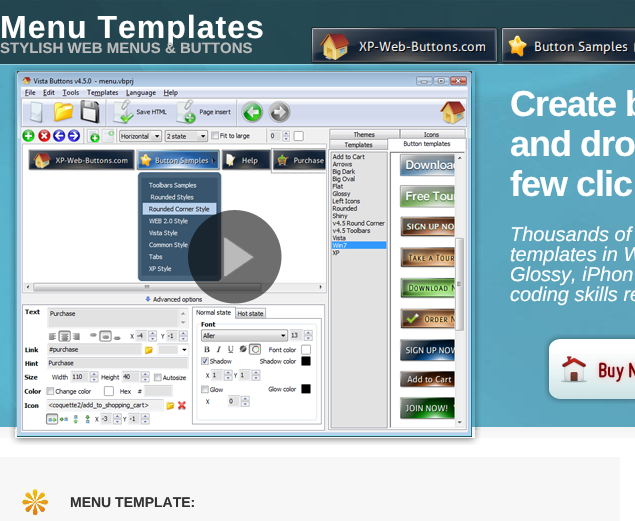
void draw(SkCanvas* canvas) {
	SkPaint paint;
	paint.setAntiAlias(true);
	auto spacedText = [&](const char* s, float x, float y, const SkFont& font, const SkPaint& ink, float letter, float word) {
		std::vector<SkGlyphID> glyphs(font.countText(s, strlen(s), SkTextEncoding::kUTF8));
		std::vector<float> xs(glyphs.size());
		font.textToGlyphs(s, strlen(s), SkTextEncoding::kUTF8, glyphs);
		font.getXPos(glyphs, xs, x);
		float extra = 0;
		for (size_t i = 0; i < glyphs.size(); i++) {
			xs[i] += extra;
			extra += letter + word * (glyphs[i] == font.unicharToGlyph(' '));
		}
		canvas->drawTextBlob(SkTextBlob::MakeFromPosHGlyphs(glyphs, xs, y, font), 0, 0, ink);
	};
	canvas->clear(0xffffffff);
	canvas->drawImageRect(SkImages::DeferredFromEncodedData(SkData::MakeFromFileName("img1.png")), SkRect::MakeXYWH(0, 0, 635, 427), SkSamplingOptions());
	paint.setColor(0x99000000);
	canvas->drawRect(SkRect::MakeXYWH(0, 0, 635, 64), paint);
	SkFont f1(fontMgr->matchFamilyStyle("Liberation Sans", SkFontStyle::Bold()), 32);
	f1.setSubpixel(true);
	paint.setColor(0xffffffff);
	spacedText("Menu Templates", 0, 38, f1, paint, 1, 0);
	SkFont f2(fontMgr->matchFamilyStyle("Liberation Sans", SkFontStyle::Bold()), 15);
	f2.setSubpixel(true);
	paint.setColor(0xffbbbbbb);
	canvas->drawString("STYLISH WEB MENUS & BUTTONS", 0, 53, f2, paint);
	paint.setColor(0x63ffffff);
	canvas->drawRect(SkRect::MakeXYWH(0, 64, 635, 1), paint);
	canvas->drawImageRect(SkImages::DeferredFromEncodedData(SkData::MakeFromFileName("img2.png")), SkRect::MakeXYWH(311, 27, 189, 39), SkSamplingOptions());
	canvas->drawImageRect(SkImages::DeferredFromEncodedData(SkData::MakeFromFileName("img3.png")), SkRect::MakeXYWH(501, 27, 134, 39), SkSamplingOptions());
	canvas->drawImageRect(SkImages::DeferredFromEncodedData(SkData::MakeFromFileName("img7.png")), SkRect::MakeXYWH(0, 427, 635, 11), SkSamplingOptions());
	canvas->drawImageRect(SkImages::DeferredFromEncodedData(SkData::MakeFromFileName("img4.png")), SkRect::MakeXYWH(9, 66, 472, 379), SkSamplingOptions());
	canvas->drawImageRect(SkImages::DeferredFromEncodedData(SkData::MakeFromFileName("img5.png")), SkRect::MakeXYWH(188, 210, 94, 94), SkSamplingOptions());
	SkFont f3(fontMgr->matchFamilyStyle("Liberation Sans", SkFontStyle::Bold()), 36);
	f3.setSubpixel(true);
	paint.setColor(0xffffffff);
	spacedText("Create b", 510, 116, f3, paint, -1, 0);
	spacedText("and dro", 510, 156, f3, paint, -1, 0);
	spacedText("few clic", 510, 196, f3, paint, -1, 0);
	SkFont f4(fontMgr->matchFamilyStyle("Liberation Sans", SkFontStyle::Italic()), 20);
	f4.setSubpixel(true);
	canvas->drawString("Thousands of", 510, 241, f4, paint);
	canvas->drawString("templates in W", 510, 261, f4, paint);
	canvas->drawString("Glossy, iPhon", 510, 281, f4, paint);
	canvas->drawString("coding skills re", 510, 301, f4, paint);
	canvas->drawImageRect(SkImages::DeferredFromEncodedData(SkData::MakeFromFileName("img6.png")), SkRect::MakeXYWH(544, 334, 91, 70), SkSamplingOptions());
	paint.setColor(0xfff7f7f7);
	canvas->drawRect(SkRect::MakeXYWH(0, 457, 620, 64), paint);
	canvas->drawImageRect(SkImages::DeferredFromEncodedData(SkData::MakeFromFileName("img8.png")), SkRect::MakeXYWH(20, 487, 32, 32), SkSamplingOptions());
	SkFont f5(fontMgr->matchFamilyStyle("Liberation Sans", SkFontStyle::Bold()), 14);
	f5.setSubpixel(true);
	paint.setColor(0xff333333);
	canvas->drawString("MENU TEMPLATE:", 70, 507, f5, paint);
}
